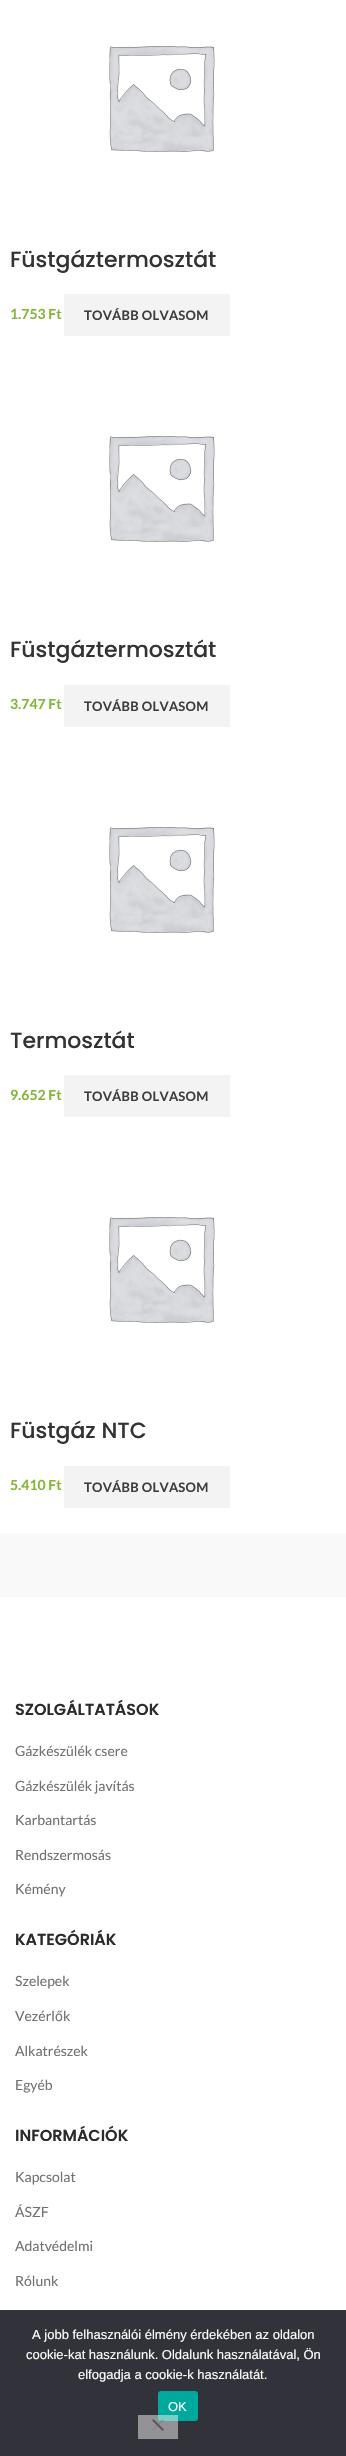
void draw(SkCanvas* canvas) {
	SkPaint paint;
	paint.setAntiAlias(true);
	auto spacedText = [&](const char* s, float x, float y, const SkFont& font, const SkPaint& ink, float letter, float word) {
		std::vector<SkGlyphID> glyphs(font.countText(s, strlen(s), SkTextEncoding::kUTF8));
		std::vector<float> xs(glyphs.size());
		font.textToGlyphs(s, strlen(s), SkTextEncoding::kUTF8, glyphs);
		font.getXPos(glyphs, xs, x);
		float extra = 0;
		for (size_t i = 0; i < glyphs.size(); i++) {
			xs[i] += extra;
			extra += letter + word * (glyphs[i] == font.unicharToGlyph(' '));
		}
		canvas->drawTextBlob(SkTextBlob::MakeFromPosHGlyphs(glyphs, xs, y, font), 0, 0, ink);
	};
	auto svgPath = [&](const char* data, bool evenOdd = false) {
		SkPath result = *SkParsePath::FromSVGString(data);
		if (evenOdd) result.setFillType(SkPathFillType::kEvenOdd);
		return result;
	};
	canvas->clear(0xffffffff);
	canvas->drawImageRect(SkImages::DeferredFromEncodedData(SkData::MakeFromFileName("img1.png")), SkRect::MakeXYWH(109, 46, 106, 106), SkSamplingOptions());
	SkFont f1(fontMgr->matchFamilyStyle("Poppins", SkFontStyle(500, SkFontStyle::kNormal_Width, SkFontStyle::kUpright_Slant)), 22);
	f1.setSubpixel(true);
	paint.setColor(0xff333333);
	canvas->drawString("Füstgáztermosztát", 10, 267, f1, paint);
	SkFont f2(fontMgr->matchFamilyStyle("Lato", SkFontStyle::Bold()), 14);
	f2.setSubpixel(true);
	paint.setColor(0xff83b735);
	canvas->drawString("1.753 Ft", 10, 319, f2, paint);
	paint.setColor(0xfff3f3f3);
	canvas->drawRect(SkRect::MakeXYWH(64, 294, 166, 42), paint);
	SkFont f3(fontMgr->matchFamilyStyle("Lato", SkFontStyle::Bold()), 13);
	f3.setSubpixel(true);
	paint.setColor(0xff3e3e3e);
	spacedText("TOVÁBB OLVASOM", 84, 320, f3, paint, 0.25, 0);
	canvas->drawImageRect(SkImages::DeferredFromEncodedData(SkData::MakeFromFileName("img1.png")), SkRect::MakeXYWH(109, 436, 106, 106), SkSamplingOptions());
	paint.setColor(0xff333333);
	canvas->drawString("Füstgáztermosztát", 10, 657, f1, paint);
	paint.setColor(0xff83b735);
	canvas->drawString("3.747 Ft", 10, 709, f2, paint);
	paint.setColor(0xfff3f3f3);
	canvas->drawRect(SkRect::MakeXYWH(64, 685, 166, 42), paint);
	paint.setColor(0xff3e3e3e);
	spacedText("TOVÁBB OLVASOM", 84, 711, f3, paint, 0.25, 0);
	canvas->drawImageRect(SkImages::DeferredFromEncodedData(SkData::MakeFromFileName("img1.png")), SkRect::MakeXYWH(109, 827, 106, 106), SkSamplingOptions());
	paint.setColor(0xff333333);
	canvas->drawString("Termosztát", 10, 1048, f1, paint);
	paint.setColor(0xff83b735);
	canvas->drawString("9.652 Ft", 10, 1100, f2, paint);
	paint.setColor(0xfff3f3f3);
	canvas->drawRect(SkRect::MakeXYWH(64, 1075, 166, 42), paint);
	paint.setColor(0xff3e3e3e);
	spacedText("TOVÁBB OLVASOM", 84, 1101, f3, paint, 0.25, 0);
	canvas->drawImageRect(SkImages::DeferredFromEncodedData(SkData::MakeFromFileName("img1.png")), SkRect::MakeXYWH(109, 1217, 106, 106), SkSamplingOptions());
	paint.setColor(0xff333333);
	canvas->drawString("Füstgáz NTC", 10, 1438, f1, paint);
	paint.setColor(0xff83b735);
	canvas->drawString("5.410 Ft", 10, 1490, f2, paint);
	paint.setColor(0xfff3f3f3);
	canvas->drawRect(SkRect::MakeXYWH(64, 1466, 166, 42), paint);
	paint.setColor(0xff3e3e3e);
	spacedText("TOVÁBB OLVASOM", 84, 1492, f3, paint, 0.25, 0);
	paint.setColor(0xfff9f9f9);
	canvas->drawRect(SkRect::MakeXYWH(0, 1533, 346, 64), paint);
	SkFont f4(fontMgr->matchFamilyStyle("Poppins", SkFontStyle(600, SkFontStyle::kNormal_Width, SkFontStyle::kUpright_Slant)), 16);
	f4.setSubpixel(true);
	paint.setColor(0xff2d2a2a);
	canvas->drawString("SZOLGÁLTATÁSOK", 15, 1715, f4, paint);
	SkFont f5(fontMgr->matchFamilyStyle("Lato", SkFontStyle::Normal()), 14);
	f5.setSubpixel(true);
	paint.setColor(0xff727272);
	canvas->drawString("Gázkészülék csere", 15, 1756, f5, paint);
	canvas->drawString("Gázkészülék javítás", 15, 1791, f5, paint);
	canvas->drawString("Karbantartás", 15, 1825, f5, paint);
	canvas->drawString("Rendszermosás", 15, 1860, f5, paint);
	canvas->drawString("Kémény", 15, 1894, f5, paint);
	paint.setColor(0xff2d2a2a);
	canvas->drawString("KATEGÓRIÁK", 15, 1945, f4, paint);
	paint.setColor(0xff727272);
	canvas->drawString("Szelepek", 15, 1986, f5, paint);
	canvas->drawString("Vezérl", 15, 2021, f5, paint);
	SkFont f6(fontMgr->matchFamilyStyle("Liberation Sans", SkFontStyle::Normal()), 14);
	f6.setSubpixel(true);
	canvas->drawString("ő", 55, 2021, f6, paint);
	canvas->drawString("k", 63, 2021, f5, paint);
	canvas->drawString("Alkatrészek", 15, 2056, f5, paint);
	canvas->drawString("Egyéb", 15, 2090, f5, paint);
	paint.setColor(0xff2d2a2a);
	canvas->drawString("INFORMÁCIÓK", 15, 2141, f4, paint);
	paint.setColor(0xff727272);
	canvas->drawString("Kapcsolat", 15, 2182, f5, paint);
	canvas->drawString("ÁSZF", 15, 2217, f5, paint);
	canvas->drawString("Adatvédelmi", 15, 2251, f5, paint);
	canvas->drawString("Rólunk", 15, 2286, f5, paint);
	paint.setColor(0xff32323a);
	canvas->drawRect(SkRect::MakeXYWH(0, 2310, 346, 146), paint);
	SkFont f7(fontMgr->matchFamilyStyle("Liberation Sans", SkFontStyle::Normal()), 13);
	f7.setSubpixel(true);
	paint.setColor(0xffffffff);
	canvas->drawString("A jobb felhasználói élmény érdekében az oldalon", 32, 2339, f7, paint);
	canvas->drawString("cookie-kat használunk. Oldalunk használatával, Ön", 26, 2359, f7, paint);
	canvas->drawString("elfogadja a cookie-k használatát.", 78, 2379, f7, paint);
	paint.setColor(0xff00a99d);
	canvas->drawRoundRect(SkRect::MakeXYWH(158, 2391, 40, 30), 3, 3, paint);
	paint.setColor(0xffffffff);
	canvas->drawString("OK", 168, 2411, f7, paint);
	paint.setColor(0x80f3f3f3);
	canvas->drawRect(SkRect::MakeXYWH(138, 2415, 40, 24), paint);
	paint.setColor(0x80808080);
	canvas->drawPath(svgPath("M162.5 2419L164 2420.5L153.5 2431L152 2429.5Z"), paint);
	paint.setColor(0xff59595d);
	canvas->drawPath(svgPath("M152 2420.5L153.5 2419L164 2429.5L162.5 2431Z"), paint);
}
